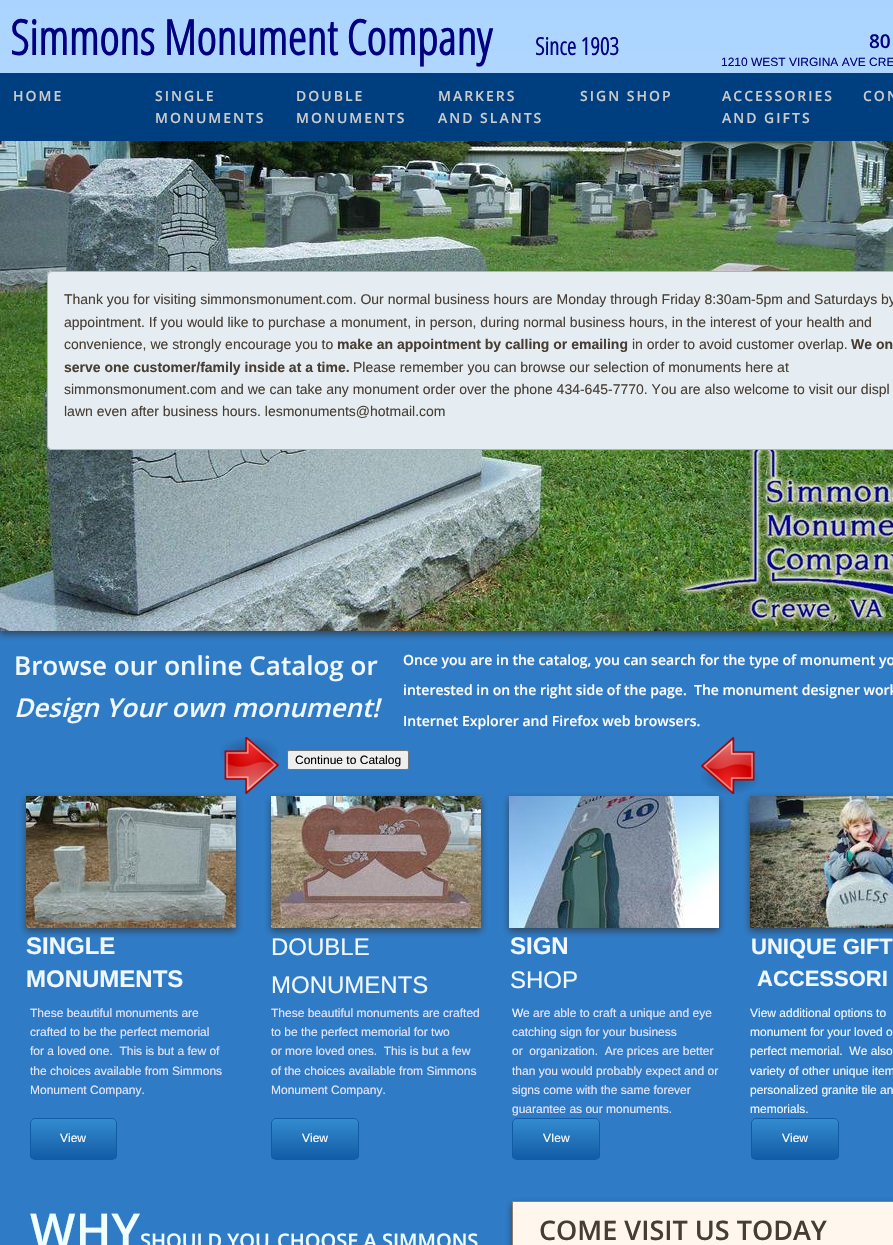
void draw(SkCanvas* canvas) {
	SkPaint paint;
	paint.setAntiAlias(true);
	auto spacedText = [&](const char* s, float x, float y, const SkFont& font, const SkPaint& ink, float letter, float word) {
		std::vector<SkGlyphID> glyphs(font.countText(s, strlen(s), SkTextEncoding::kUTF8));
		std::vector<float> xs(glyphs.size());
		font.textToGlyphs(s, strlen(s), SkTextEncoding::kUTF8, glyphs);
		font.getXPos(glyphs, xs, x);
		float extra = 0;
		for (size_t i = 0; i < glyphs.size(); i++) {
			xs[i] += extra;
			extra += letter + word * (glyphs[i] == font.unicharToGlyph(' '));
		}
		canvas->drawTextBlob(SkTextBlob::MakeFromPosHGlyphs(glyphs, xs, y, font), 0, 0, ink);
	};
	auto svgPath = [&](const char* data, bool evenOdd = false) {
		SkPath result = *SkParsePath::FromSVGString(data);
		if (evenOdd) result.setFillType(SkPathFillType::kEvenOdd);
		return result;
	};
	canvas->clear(0xffffffff);
	{
		const SkColor colors[] = {0xffaad4ff, 0xffffffff};
		const float stops[] = {0, 1};
		const SkPoint ends[] = {{446, 0}, {447, 1245}};
		paint.setShader(SkGradientShader::MakeLinear(ends, colors, stops, 2, SkTileMode::kClamp));
		paint.setAlpha(255);
	}
	canvas->drawRect(SkRect::MakeXYWH(0, 0, 893, 73), paint);
	paint.setShader(nullptr);
	paint.setColor(0xff2f7bc6);
	canvas->drawRect(SkRect::MakeXYWH(0, 631, 893, 614), paint);
	SkFont f1(fontMgr->matchFamilyStyle("Open Sans Condensed", SkFontStyle::Bold()), 48);
	f1.setSubpixel(true);
	paint.setColor(0xff000080);
	canvas->drawString("Simmons Monument Company", 10, 55, f1, paint);
	SkFont f2(fontMgr->matchFamilyStyle("Open Sans Condensed", SkFontStyle::Bold()), 24);
	f2.setSubpixel(true);
	canvas->drawString("Since 1903", 535, 55, f2, paint);
	SkFont f3(fontMgr->matchFamilyStyle("Open Sans", SkFontStyle(600, SkFontStyle::kNormal_Width, SkFontStyle::kUpright_Slant)), 19);
	f3.setSubpixel(true);
	canvas->drawString("80", 869, 48, f3, paint);
	SkFont f4(fontMgr->matchFamilyStyle("Liberation Sans", SkFontStyle::Normal()), 12);
	f4.setSubpixel(true);
	canvas->drawString("1210 WEST VIRGINA AVE CRE", 721, 66, f4, paint);
	paint.setColor(0xbf323232);
	paint.setMaskFilter(SkMaskFilter::MakeBlur(kNormal_SkBlurStyle, 3.5));
	canvas->drawRect(SkRect::MakeXYWH(0, 139, 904, 495), paint);
	paint.setMaskFilter(nullptr);
	paint.setColor(0xff003f7f);
	canvas->drawRect(SkRect::MakeXYWH(0, 73, 893, 68), paint);
	SkFont f5(fontMgr->matchFamilyStyle("Open Sans", SkFontStyle(600, SkFontStyle::kNormal_Width, SkFontStyle::kUpright_Slant)), 14);
	f5.setSubpixel(true);
	paint.setColor(0xffcccccc);
	spacedText("HOME", 13, 101, f5, paint, 2, 0);
	spacedText("SINGLE", 155, 101, f5, paint, 2, 0);
	spacedText("MONUMENTS", 155, 123, f5, paint, 2, 0);
	spacedText("DOUBLE", 296, 101, f5, paint, 2, 0);
	spacedText("MONUMENTS", 296, 123, f5, paint, 2, 0);
	spacedText("MARKERS", 438, 101, f5, paint, 2, 0);
	spacedText("AND SLANTS", 438, 123, f5, paint, 2, 0);
	spacedText("SIGN SHOP", 580, 101, f5, paint, 2, 0);
	spacedText("ACCESSORIES", 722, 101, f5, paint, 2, 0);
	spacedText("AND GIFTS", 722, 123, f5, paint, 2, 0);
	spacedText("CON", 863, 101, f5, paint, 2, 0);
	canvas->drawImageRect(SkImages::DeferredFromEncodedData(SkData::MakeFromFileName("img1.png")), SkRect::MakeXYWH(0, 141, 893, 490), SkSamplingOptions());
	paint.setColor(0xffe5edf2);
	canvas->drawPath(svgPath("M52 271H893V450H52C49 450 47 448 47 445V276C47 273 49 271 52 271Z"), paint);
	paint.setStroke(true);
	paint.setStrokeWidth(1);
	paint.setColor(0xffa9b4bb);
	canvas->drawRoundRect(SkRect::MakeXYWH(47.5, 271.5, 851, 178), 4.5, 4.5, paint);
	SkFont f6(fontMgr->matchFamilyStyle("Liberation Sans", SkFontStyle::Normal()), 14);
	f6.setSubpixel(true);
	paint.setStroke(false);
	paint.setColor(0xff473d32);
	canvas->drawString("Thank you for visiting simmonsmonument.com. Our normal business hours are Monday through Friday 8:30am-5pm and Saturdays by", 64, 304, f6, paint);
	canvas->drawString("appointment. If you would like to purchase a monument, in person, during normal business hours, in the interest of your health and", 64, 327, f6, paint);
	canvas->drawString("convenience, we strongly encourage you to", 64, 349, f6, paint);
	SkFont f7(fontMgr->matchFamilyStyle("Liberation Sans", SkFontStyle::Bold()), 14);
	f7.setSubpixel(true);
	canvas->drawString("make an appointment by calling or emailing", 337, 349, f7, paint);
	canvas->drawString("in order to avoid customer overlap.", 632, 349, f6, paint);
	canvas->drawString("We on", 851, 349, f7, paint);
	canvas->drawString("serve one customer/family inside at a time.", 64, 372, f7, paint);
	canvas->drawString("Please remember you can browse our selection of monuments here at", 353, 372, f6, paint);
	canvas->drawString("simmonsmonument.com and we can take any monument order over the phone 434-645-7770. You are also welcome to visit our displ", 64, 394, f6, paint);
	canvas->drawString("lawn even after business hours. lesmonuments@hotmail.com", 64, 416, f6, paint);
	SkFont f8(fontMgr->matchFamilyStyle("Open Sans", SkFontStyle(600, SkFontStyle::kNormal_Width, SkFontStyle::kUpright_Slant)), 26);
	f8.setSubpixel(true);
	paint.setColor(0xfff0f8ff);
	canvas->drawString("Browse our online Catalog or", 14, 675, f8, paint);
	SkFont f9(fontMgr->matchFamilyStyle("Open Sans", SkFontStyle(600, SkFontStyle::kNormal_Width, SkFontStyle::kItalic_Slant)), 26);
	f9.setSubpixel(true);
	canvas->drawString("Design Your own monument!", 14, 717, f9, paint);
	paint.setColor(0xffffffff);
	canvas->drawString("Once you are in the catalog, you can search for the type of monument yo", 403, 665, f5, paint);
	canvas->drawString("interested in on the right side of the page.  The monument designer work", 403, 695, f5, paint);
	canvas->drawString("Internet Explorer and Firefox web browsers.", 403, 726, f5, paint);
	paint.setColor(0xbf323232);
	paint.setMaskFilter(SkMaskFilter::MakeBlur(kNormal_SkBlurStyle, 3.5));
	canvas->drawRect(SkRect::MakeXYWH(26, 799, 210, 132), paint);
	paint.setMaskFilter(nullptr);
	paint.setMaskFilter(SkMaskFilter::MakeBlur(kNormal_SkBlurStyle, 3.5));
	canvas->drawRect(SkRect::MakeXYWH(271, 799, 210, 132), paint);
	paint.setMaskFilter(nullptr);
	canvas->drawImageRect(SkImages::DeferredFromEncodedData(SkData::MakeFromFileName("img2.png")), SkRect::MakeXYWH(220, 737, 60, 57), SkSamplingOptions());
	paint.setColor(0xffefefef);
	canvas->drawRoundRect(SkRect::MakeXYWH(287.5, 750.5, 121, 19), 1.5, 1.5, paint);
	paint.setStroke(true);
	paint.setColor(0xff767676);
	canvas->drawRoundRect(SkRect::MakeXYWH(287.5, 750.5, 121, 19), 1.5, 1.5, paint);
	paint.setStroke(false);
	paint.setColor(0xff000000);
	canvas->drawString("Continue to Catalog", 295, 764, f4, paint);
	paint.setColor(0xbf323232);
	paint.setMaskFilter(SkMaskFilter::MakeBlur(kNormal_SkBlurStyle, 3.5));
	canvas->drawRect(SkRect::MakeXYWH(509, 799, 210, 132), paint);
	paint.setMaskFilter(nullptr);
	paint.setMaskFilter(SkMaskFilter::MakeBlur(kNormal_SkBlurStyle, 3.5));
	canvas->drawRect(SkRect::MakeXYWH(750, 799, 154, 132), paint);
	paint.setMaskFilter(nullptr);
	canvas->drawImageRect(SkImages::DeferredFromEncodedData(SkData::MakeFromFileName("img3.png")), SkRect::MakeXYWH(700, 737, 59, 57), SkSamplingOptions());
	canvas->drawImageRect(SkImages::DeferredFromEncodedData(SkData::MakeFromFileName("img4.png")), SkRect::MakeXYWH(26, 796, 210, 132), SkSamplingOptions());
	canvas->drawImageRect(SkImages::DeferredFromEncodedData(SkData::MakeFromFileName("img5.png")), SkRect::MakeXYWH(271, 796, 210, 132), SkSamplingOptions());
	canvas->drawImageRect(SkImages::DeferredFromEncodedData(SkData::MakeFromFileName("img6.png")), SkRect::MakeXYWH(509, 796, 210, 132), SkSamplingOptions());
	canvas->drawImageRect(SkImages::DeferredFromEncodedData(SkData::MakeFromFileName("img7.png")), SkRect::MakeXYWH(750, 796, 143, 132), SkSamplingOptions());
	SkFont f10(fontMgr->matchFamilyStyle("Liberation Sans", SkFontStyle::Bold()), 24);
	f10.setSubpixel(true);
	paint.setColor(0xfff0f8ff);
	canvas->drawString("SINGLE", 26, 954, f10, paint);
	canvas->drawString("MONUMENTS", 26, 987, f10, paint);
	SkFont f11(fontMgr->matchFamilyStyle("Liberation Sans", SkFontStyle::Normal()), 24);
	f11.setSubpixel(true);
	canvas->drawString("DOUBLE", 271, 955, f11, paint);
	canvas->drawString("MONUMENTS", 271, 993, f11, paint);
	canvas->drawString("SIGN", 510, 954, f10, paint);
	canvas->drawString("SHOP", 510, 988, f11, paint);
	SkFont f12(fontMgr->matchFamilyStyle("Liberation Sans", SkFontStyle::Bold()), 22);
	f12.setSubpixel(true);
	canvas->drawString("UNIQUE GIFT", 751, 954, f12, paint);
	canvas->drawString("ACCESSORI", 757, 986, f12, paint);
	paint.setColor(0xffe6e6fa);
	canvas->drawString("These beautiful monuments are", 30, 1017, f4, paint);
	canvas->drawString("crafted to be the perfect memorial", 30, 1036, f4, paint);
	canvas->drawString("for a loved one.  This is but a few of", 30, 1055, f4, paint);
	canvas->drawString("the choices available from Simmons", 30, 1075, f4, paint);
	canvas->drawString("Monument Company.", 30, 1094, f4, paint);
	canvas->drawString("These beautiful monuments are crafted", 271, 1017, f4, paint);
	canvas->drawString("to be the perfect memorial for two", 271, 1036, f4, paint);
	canvas->drawString("or more loved ones.  This is but a few", 271, 1055, f4, paint);
	canvas->drawString("of the choices available from Simmons", 271, 1075, f4, paint);
	canvas->drawString("Monument Company.", 271, 1094, f4, paint);
	paint.setColor(0xfff0f8ff);
	canvas->drawString("W", 512, 1017, f4, paint);
	paint.setColor(0xffe6e6fa);
	canvas->drawString("e are able to craft a unique and eye", 523, 1017, f4, paint);
	canvas->drawString("catching sign for your business", 512, 1036, f4, paint);
	canvas->drawString("or  organization.  Are prices are better", 512, 1055, f4, paint);
	canvas->drawString("than you would probably expect and or", 512, 1075, f4, paint);
	canvas->drawString("signs come with the same forever", 512, 1094, f4, paint);
	canvas->drawString("guarantee as our monuments.", 512, 1113, f4, paint);
	paint.setColor(0xfff0f8ff);
	canvas->drawString("View additional options to", 750, 1017, f4, paint);
	canvas->drawString("monument for your loved o", 750, 1036, f4, paint);
	canvas->drawString("perfect memorial.  We also", 750, 1055, f4, paint);
	canvas->drawString("variety of other unique item", 750, 1075, f4, paint);
	canvas->drawString("personalized granite tile an", 750, 1094, f4, paint);
	canvas->drawString("memorials.", 750, 1113, f4, paint);
	canvas->save();
	canvas->clipPath(svgPath("M35 1118H112C115 1118 117 1120 117 1123V1155C117 1158 115 1160 112 1160H35C32 1160 30 1158 30 1155V1123C30 1120 32 1118 35 1118Z"), true);
	{
		const SkColor colors[] = {0xff348bcf, 0xff125ca6};
		const float stops[] = {0, 1};
		const SkPoint ends[] = {{74, 1119}, {74, 1159}};
		paint.setShader(SkGradientShader::MakeLinear(ends, colors, stops, 2, SkTileMode::kClamp));
		paint.setAlpha(255);
	}
	canvas->drawRect(SkRect::MakeXYWH(30, 1119, 87, 40), paint);
	canvas->restore();
	paint.setStroke(true);
	paint.setShader(nullptr);
	paint.setColor(0xff125ca6);
	canvas->drawRoundRect(SkRect::MakeXYWH(30.5, 1118.5, 86, 41), 4.5, 4.5, paint);
	paint.setStroke(false);
	paint.setColor(0xffffffff);
	canvas->drawString("View", 60, 1142, f4, paint);
	canvas->save();
	canvas->clipPath(svgPath("M276 1118H354C357 1118 359 1120 359 1123V1155C359 1158 357 1160 354 1160H276C273 1160 271 1158 271 1155V1123C271 1120 273 1118 276 1118Z"), true);
	{
		const SkColor colors[] = {0xff348bcf, 0xff125ca6};
		const float stops[] = {0, 1};
		const SkPoint ends[] = {{315, 1119}, {315, 1159}};
		paint.setShader(SkGradientShader::MakeLinear(ends, colors, stops, 2, SkTileMode::kClamp));
		paint.setAlpha(255);
	}
	canvas->drawRect(SkRect::MakeXYWH(271, 1119, 88, 40), paint);
	canvas->restore();
	paint.setStroke(true);
	paint.setShader(nullptr);
	paint.setColor(0xff125ca6);
	canvas->drawRoundRect(SkRect::MakeXYWH(271.5, 1118.5, 87, 41), 4.5, 4.5, paint);
	paint.setStroke(false);
	paint.setColor(0xffffffff);
	canvas->drawString("View", 302, 1142, f4, paint);
	canvas->save();
	canvas->clipPath(svgPath("M517 1118H595C598 1118 600 1120 600 1123V1155C600 1158 598 1160 595 1160H517C514 1160 512 1158 512 1155V1123C512 1120 514 1118 517 1118Z"), true);
	{
		const SkColor colors[] = {0xff348bcf, 0xff125ca6};
		const float stops[] = {0, 1};
		const SkPoint ends[] = {{556, 1119}, {556, 1159}};
		paint.setShader(SkGradientShader::MakeLinear(ends, colors, stops, 2, SkTileMode::kClamp));
		paint.setAlpha(255);
	}
	canvas->drawRect(SkRect::MakeXYWH(512, 1119, 88, 40), paint);
	canvas->restore();
	paint.setStroke(true);
	paint.setShader(nullptr);
	paint.setColor(0xff125ca6);
	canvas->drawRoundRect(SkRect::MakeXYWH(512.5, 1118.5, 87, 41), 4.5, 4.5, paint);
	paint.setStroke(false);
	paint.setColor(0xffffffff);
	canvas->drawString("VIew", 543, 1142, f4, paint);
	canvas->save();
	canvas->clipPath(svgPath("M756 1118H834C837 1118 839 1120 839 1123V1155C839 1158 837 1160 834 1160H756C753 1160 751 1158 751 1155V1123C751 1120 753 1118 756 1118Z"), true);
	{
		const SkColor colors[] = {0xff348bcf, 0xff125ca6};
		const float stops[] = {0, 1};
		const SkPoint ends[] = {{795, 1119}, {795, 1159}};
		paint.setShader(SkGradientShader::MakeLinear(ends, colors, stops, 2, SkTileMode::kClamp));
		paint.setAlpha(255);
	}
	canvas->drawRect(SkRect::MakeXYWH(751, 1119, 88, 40), paint);
	canvas->restore();
	paint.setStroke(true);
	paint.setShader(nullptr);
	paint.setColor(0xff125ca6);
	canvas->drawRoundRect(SkRect::MakeXYWH(751.5, 1118.5, 87, 41), 4.5, 4.5, paint);
	paint.setStroke(false);
	paint.setColor(0xffffffff);
	canvas->drawString("View", 782, 1142, f4, paint);
	SkFont f13(fontMgr->matchFamilyStyle("Open Sans", SkFontStyle(600, SkFontStyle::kNormal_Width, SkFontStyle::kUpright_Slant)), 48);
	f13.setSubpixel(true);
	paint.setColor(0xfff0ffff);
	canvas->drawString("WHY", 30, 1248, f13, paint);
	SkFont f14(fontMgr->matchFamilyStyle("Open Sans", SkFontStyle(600, SkFontStyle::kNormal_Width, SkFontStyle::kUpright_Slant)), 20);
	f14.setSubpixel(true);
	canvas->drawString("SHOULD YOU", 140, 1248, f14, paint);
	canvas->drawString("CHOOSE A SIMMONS", 277, 1248, f14, paint);
	paint.setColor(0xbf323232);
	paint.setMaskFilter(SkMaskFilter::MakeBlur(kNormal_SkBlurStyle, 3.5));
	canvas->drawRect(SkRect::MakeXYWH(512, 1204, 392, 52), paint);
	paint.setMaskFilter(nullptr);
	paint.setColor(0xfffff7ee);
	canvas->drawRect(SkRect::MakeXYWH(512.5, 1201.5, 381, 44), paint);
	paint.setStroke(true);
	paint.setColor(0xff947f68);
	canvas->drawRect(SkRect::MakeXYWH(512.5, 1201.5, 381, 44), paint);
	SkFont f15(fontMgr->matchFamilyStyle("Open Sans", SkFontStyle(600, SkFontStyle::kNormal_Width, SkFontStyle::kUpright_Slant)), 27);
	f15.setSubpixel(true);
	paint.setStroke(false);
	paint.setColor(0xff473d32);
	canvas->drawString("COME VISIT US TODAY", 539, 1240, f15, paint);
}
